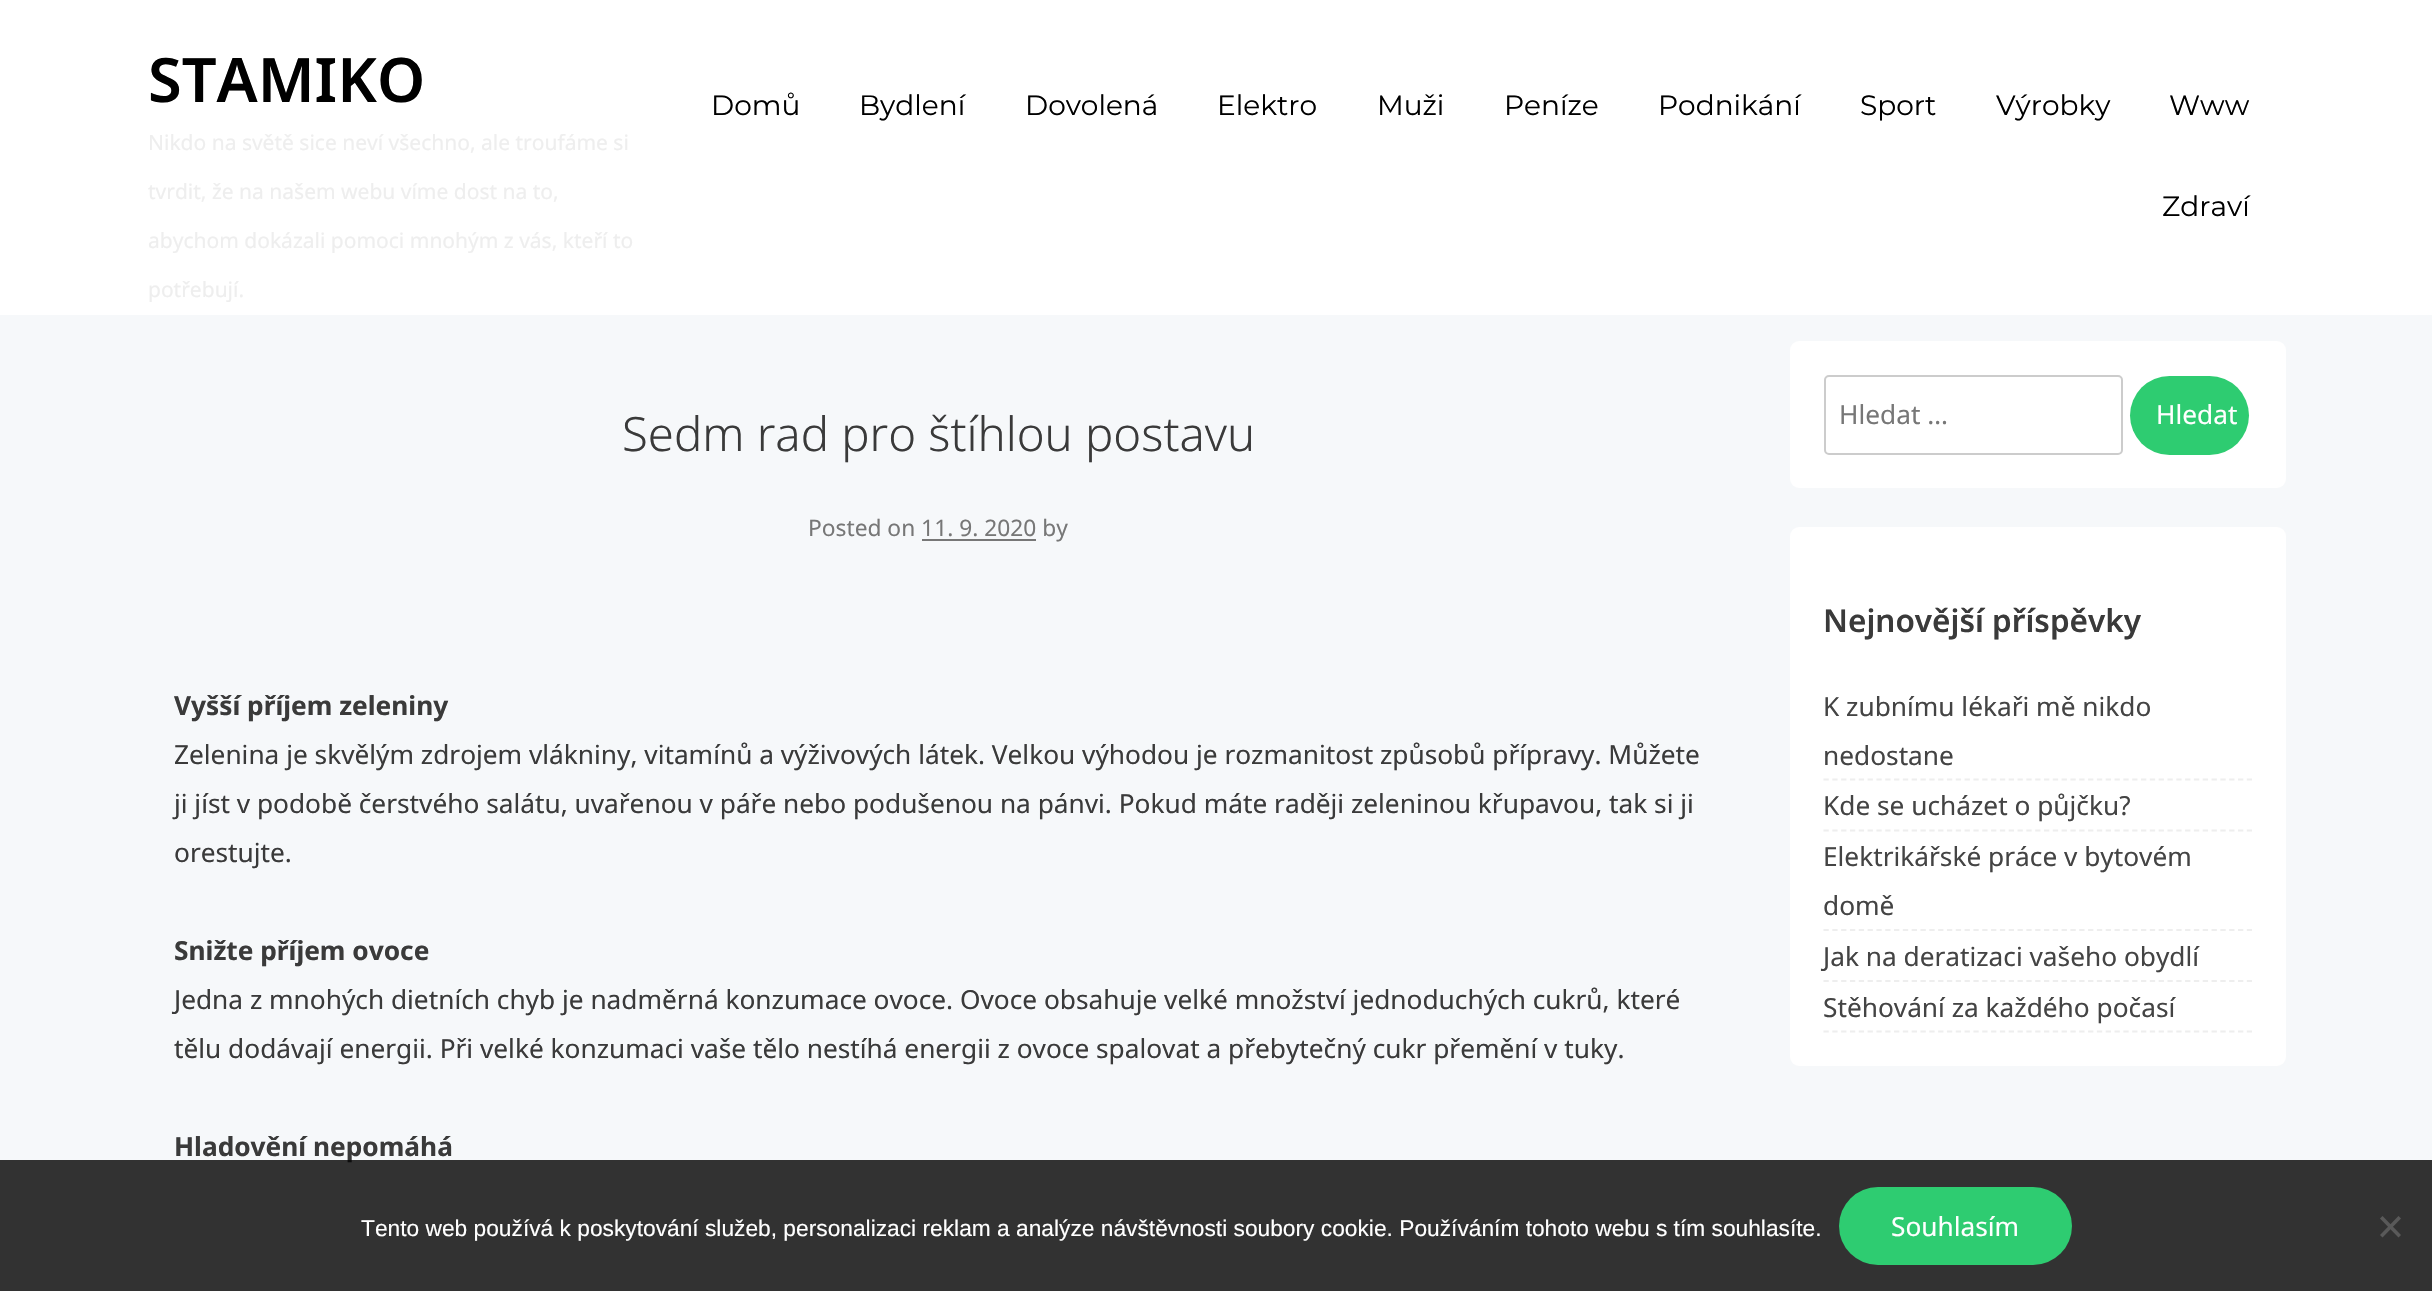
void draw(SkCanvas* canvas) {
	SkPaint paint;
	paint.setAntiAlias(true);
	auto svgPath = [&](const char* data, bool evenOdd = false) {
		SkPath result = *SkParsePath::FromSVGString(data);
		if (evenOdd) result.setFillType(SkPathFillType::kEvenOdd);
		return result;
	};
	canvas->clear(0xfff6f8fa);
	paint.setColor(0xffffffff);
	canvas->drawRect(SkRect::MakeXYWH(0, 0, 2432, 315), paint);
	SkFont f1(fontMgr->matchFamilyStyle("Noto Sans", SkFontStyle(600, SkFontStyle::kNormal_Width, SkFontStyle::kUpright_Slant)), 61.25);
	f1.setSubpixel(true);
	paint.setColor(0xff000000);
	canvas->drawString("STAMIKO", 148, 102, f1, paint);
	SkFont f2(fontMgr->matchFamilyStyle("Noto Sans", SkFontStyle::Normal()), 21);
	f2.setSubpixel(true);
	paint.setColor(0xffeeeeee);
	canvas->drawString("Nikdo na světě sice neví všechno, ale troufáme si", 148, 150, f2, paint);
	canvas->drawString("tvrdit, že na našem webu víme dost na to,", 148, 199, f2, paint);
	canvas->drawString("abychom dokázali pomoci mnohým z vás, kteří to", 148, 248, f2, paint);
	canvas->drawString("potřebují.", 148, 297, f2, paint);
	SkFont f3(fontMgr->matchFamilyStyle("Montserrat", SkFontStyle::Normal()), 28);
	f3.setSubpixel(true);
	paint.setColor(0xff000000);
	canvas->drawString("Domů", 711, 115, f3, paint);
	canvas->drawString("Bydlení", 859, 115, f3, paint);
	canvas->drawString("Dovolená", 1025, 115, f3, paint);
	canvas->drawString("Elektro", 1217, 115, f3, paint);
	canvas->drawString("Muži", 1377, 115, f3, paint);
	canvas->drawString("Peníze", 1504, 115, f3, paint);
	canvas->drawString("Podnikání", 1658, 115, f3, paint);
	canvas->drawString("Sport", 1860, 115, f3, paint);
	canvas->drawString("Výrobky", 1996, 115, f3, paint);
	canvas->drawString("Www", 2169, 115, f3, paint);
	canvas->drawString("Zdraví", 2162, 216, f3, paint);
	SkFont f4(fontMgr->matchFamilyStyle("Noto Sans", SkFontStyle(300, SkFontStyle::kNormal_Width, SkFontStyle::kUpright_Slant)), 47.25);
	f4.setSubpixel(true);
	paint.setColor(0xff3a3a3a);
	canvas->drawString("Sedm rad pro štíhlou postavu", 622, 451, f4, paint);
	SkFont f5(fontMgr->matchFamilyStyle("Noto Sans", SkFontStyle::Normal()), 22.75);
	f5.setSubpixel(true);
	paint.setColor(0xff777777);
	canvas->drawString("Posted on 11. 9. 2020 by", 808, 536, f5, paint);
	canvas->drawRect(SkRect::MakeXYWH(922, 539, 114, 2), paint);
	SkFont f6(fontMgr->matchFamilyStyle("Noto Sans", SkFontStyle::Bold()), 26.25);
	f6.setSubpixel(true);
	paint.setColor(0xff3a3a3a);
	canvas->drawString("Vyšší příjem zeleniny", 174, 715, f6, paint);
	SkFont f7(fontMgr->matchFamilyStyle("Noto Sans", SkFontStyle::Normal()), 26.25);
	f7.setSubpixel(true);
	canvas->drawString("Zelenina je skvělým zdrojem vlákniny, vitamínů a výživových látek. Velkou výhodou je rozmanitost způsobů přípravy. Můžete", 174, 764, f7, paint);
	canvas->drawString("ji jíst v podobě čerstvého salátu, uvařenou v páře nebo podušenou na pánvi. Pokud máte raději zeleninou křupavou, tak si ji", 174, 813, f7, paint);
	canvas->drawString("orestujte.", 174, 862, f7, paint);
	canvas->drawString("Snižte příjem ovoce", 174, 960, f6, paint);
	canvas->drawString("Jedna z mnohých dietních chyb je nadměrná konzumace ovoce. Ovoce obsahuje velké množství jednoduchých cukrů, které", 174, 1009, f7, paint);
	canvas->drawString("tělu dodávají energii. Při velké konzumaci vaše tělo nestíhá energii z ovoce spalovat a přebytečný cukr přemění v tuky.", 174, 1058, f7, paint);
	canvas->drawString("Hladovění nepomáhá", 174, 1156, f6, paint);
	paint.setColor(0xffffffff);
	canvas->drawRoundRect(SkRect::MakeXYWH(1790, 341, 496, 147), 9, 9, paint);
	paint.setStroke(true);
	paint.setStrokeWidth(2);
	paint.setColor(0xffcccccc);
	canvas->drawRoundRect(SkRect::MakeXYWH(1825, 376, 297, 78), 4, 4, paint);
	paint.setStroke(false);
	paint.setColor(0xff777777);
	canvas->drawString("Hledat …", 1839, 424, f7, paint);
	paint.setColor(0xff2ecc71);
	canvas->drawRoundRect(SkRect::MakeXYWH(2130, 376, 119, 79), 39.5, 39.5, paint);
	paint.setColor(0xffffffff);
	canvas->drawString("Hledat", 2156, 424, f7, paint);
	canvas->drawRoundRect(SkRect::MakeXYWH(1790, 527, 496, 539), 9, 9, paint);
	SkFont f8(fontMgr->matchFamilyStyle("Noto Sans", SkFontStyle(600, SkFontStyle::kNormal_Width, SkFontStyle::kUpright_Slant)), 31.5);
	f8.setSubpixel(true);
	paint.setColor(0xff3a3a3a);
	canvas->drawString("Nejnovější příspěvky", 1823, 632, f8, paint);
	paint.setStroke(true);
	paint.setStrokeWidth(1.8);
	paint.setColor(0xffeeeeee);
	paint.setPathEffect(SkDashPathEffect::Make({{5.25f, 3.57f}}, 0));
	canvas->drawPath(svgPath("M1823.5 779.5H2252"), paint);
	paint.setPathEffect(nullptr);
	paint.setStroke(false);
	paint.setColor(0xff444444);
	canvas->drawString("K zubnímu lékaři mě nikdo", 1823, 716, f7, paint);
	canvas->drawString("nedostane", 1823, 765, f7, paint);
	paint.setStroke(true);
	paint.setColor(0xffeeeeee);
	paint.setPathEffect(SkDashPathEffect::Make({{5.25f, 3.57f}}, 0));
	canvas->drawPath(svgPath("M1823.5 830.5H2252"), paint);
	paint.setPathEffect(nullptr);
	paint.setStroke(false);
	paint.setColor(0xff444444);
	canvas->drawString("Kde se ucházet o půjčku?", 1823, 815, f7, paint);
	paint.setStroke(true);
	paint.setColor(0xffeeeeee);
	paint.setPathEffect(SkDashPathEffect::Make({{5.25f, 3.57f}}, 0));
	canvas->drawPath(svgPath("M1823.5 930H2252"), paint);
	paint.setPathEffect(nullptr);
	paint.setStroke(false);
	paint.setColor(0xff444444);
	canvas->drawString("Elektrikářské práce v bytovém", 1823, 866, f7, paint);
	canvas->drawString("domě", 1823, 915, f7, paint);
	paint.setStroke(true);
	paint.setColor(0xffeeeeee);
	paint.setPathEffect(SkDashPathEffect::Make({{5.25f, 3.57f}}, 0));
	canvas->drawPath(svgPath("M1823.5 981H2252"), paint);
	paint.setPathEffect(nullptr);
	paint.setStroke(false);
	paint.setColor(0xff444444);
	canvas->drawString("Jak na deratizaci vašeho obydlí", 1823, 966, f7, paint);
	paint.setStroke(true);
	paint.setColor(0xffeeeeee);
	paint.setPathEffect(SkDashPathEffect::Make({{5.25f, 3.57f}}, 0));
	canvas->drawPath(svgPath("M1823.5 1031.5H2252"), paint);
	paint.setPathEffect(nullptr);
	paint.setStroke(false);
	paint.setColor(0xff444444);
	canvas->drawString("Stěhování za každého počasí", 1823, 1017, f7, paint);
	paint.setColor(0xcc000000);
	canvas->drawRect(SkRect::MakeXYWH(0, 1160, 2432, 131), paint);
	SkFont f9(fontMgr->matchFamilyStyle("Liberation Sans", SkFontStyle::Normal()), 22.75);
	f9.setSubpixel(true);
	paint.setColor(0xffffffff);
	canvas->drawString("Tento web používá k poskytování služeb, personalizaci reklam a analýze návštěvnosti soubory cookie. Používáním tohoto webu s tím souhlasíte.", 361, 1236, f9, paint);
	paint.setColor(0xff2ecc71);
	canvas->drawRoundRect(SkRect::MakeXYWH(1839, 1187, 233, 78), 39, 39, paint);
	paint.setColor(0xffffffff);
	canvas->drawString("Souhlasím", 1891, 1236, f7, paint);
	paint.setColor(0xff595959);
	canvas->drawPath(svgPath("M2398.5 1216L2401 1218.5L2382.5 1237.5L2380 1235Z"), paint);
	canvas->drawPath(svgPath("M2380 1218.5L2382.5 1216L2401 1235L2398.5 1237.5Z"), paint);
}
